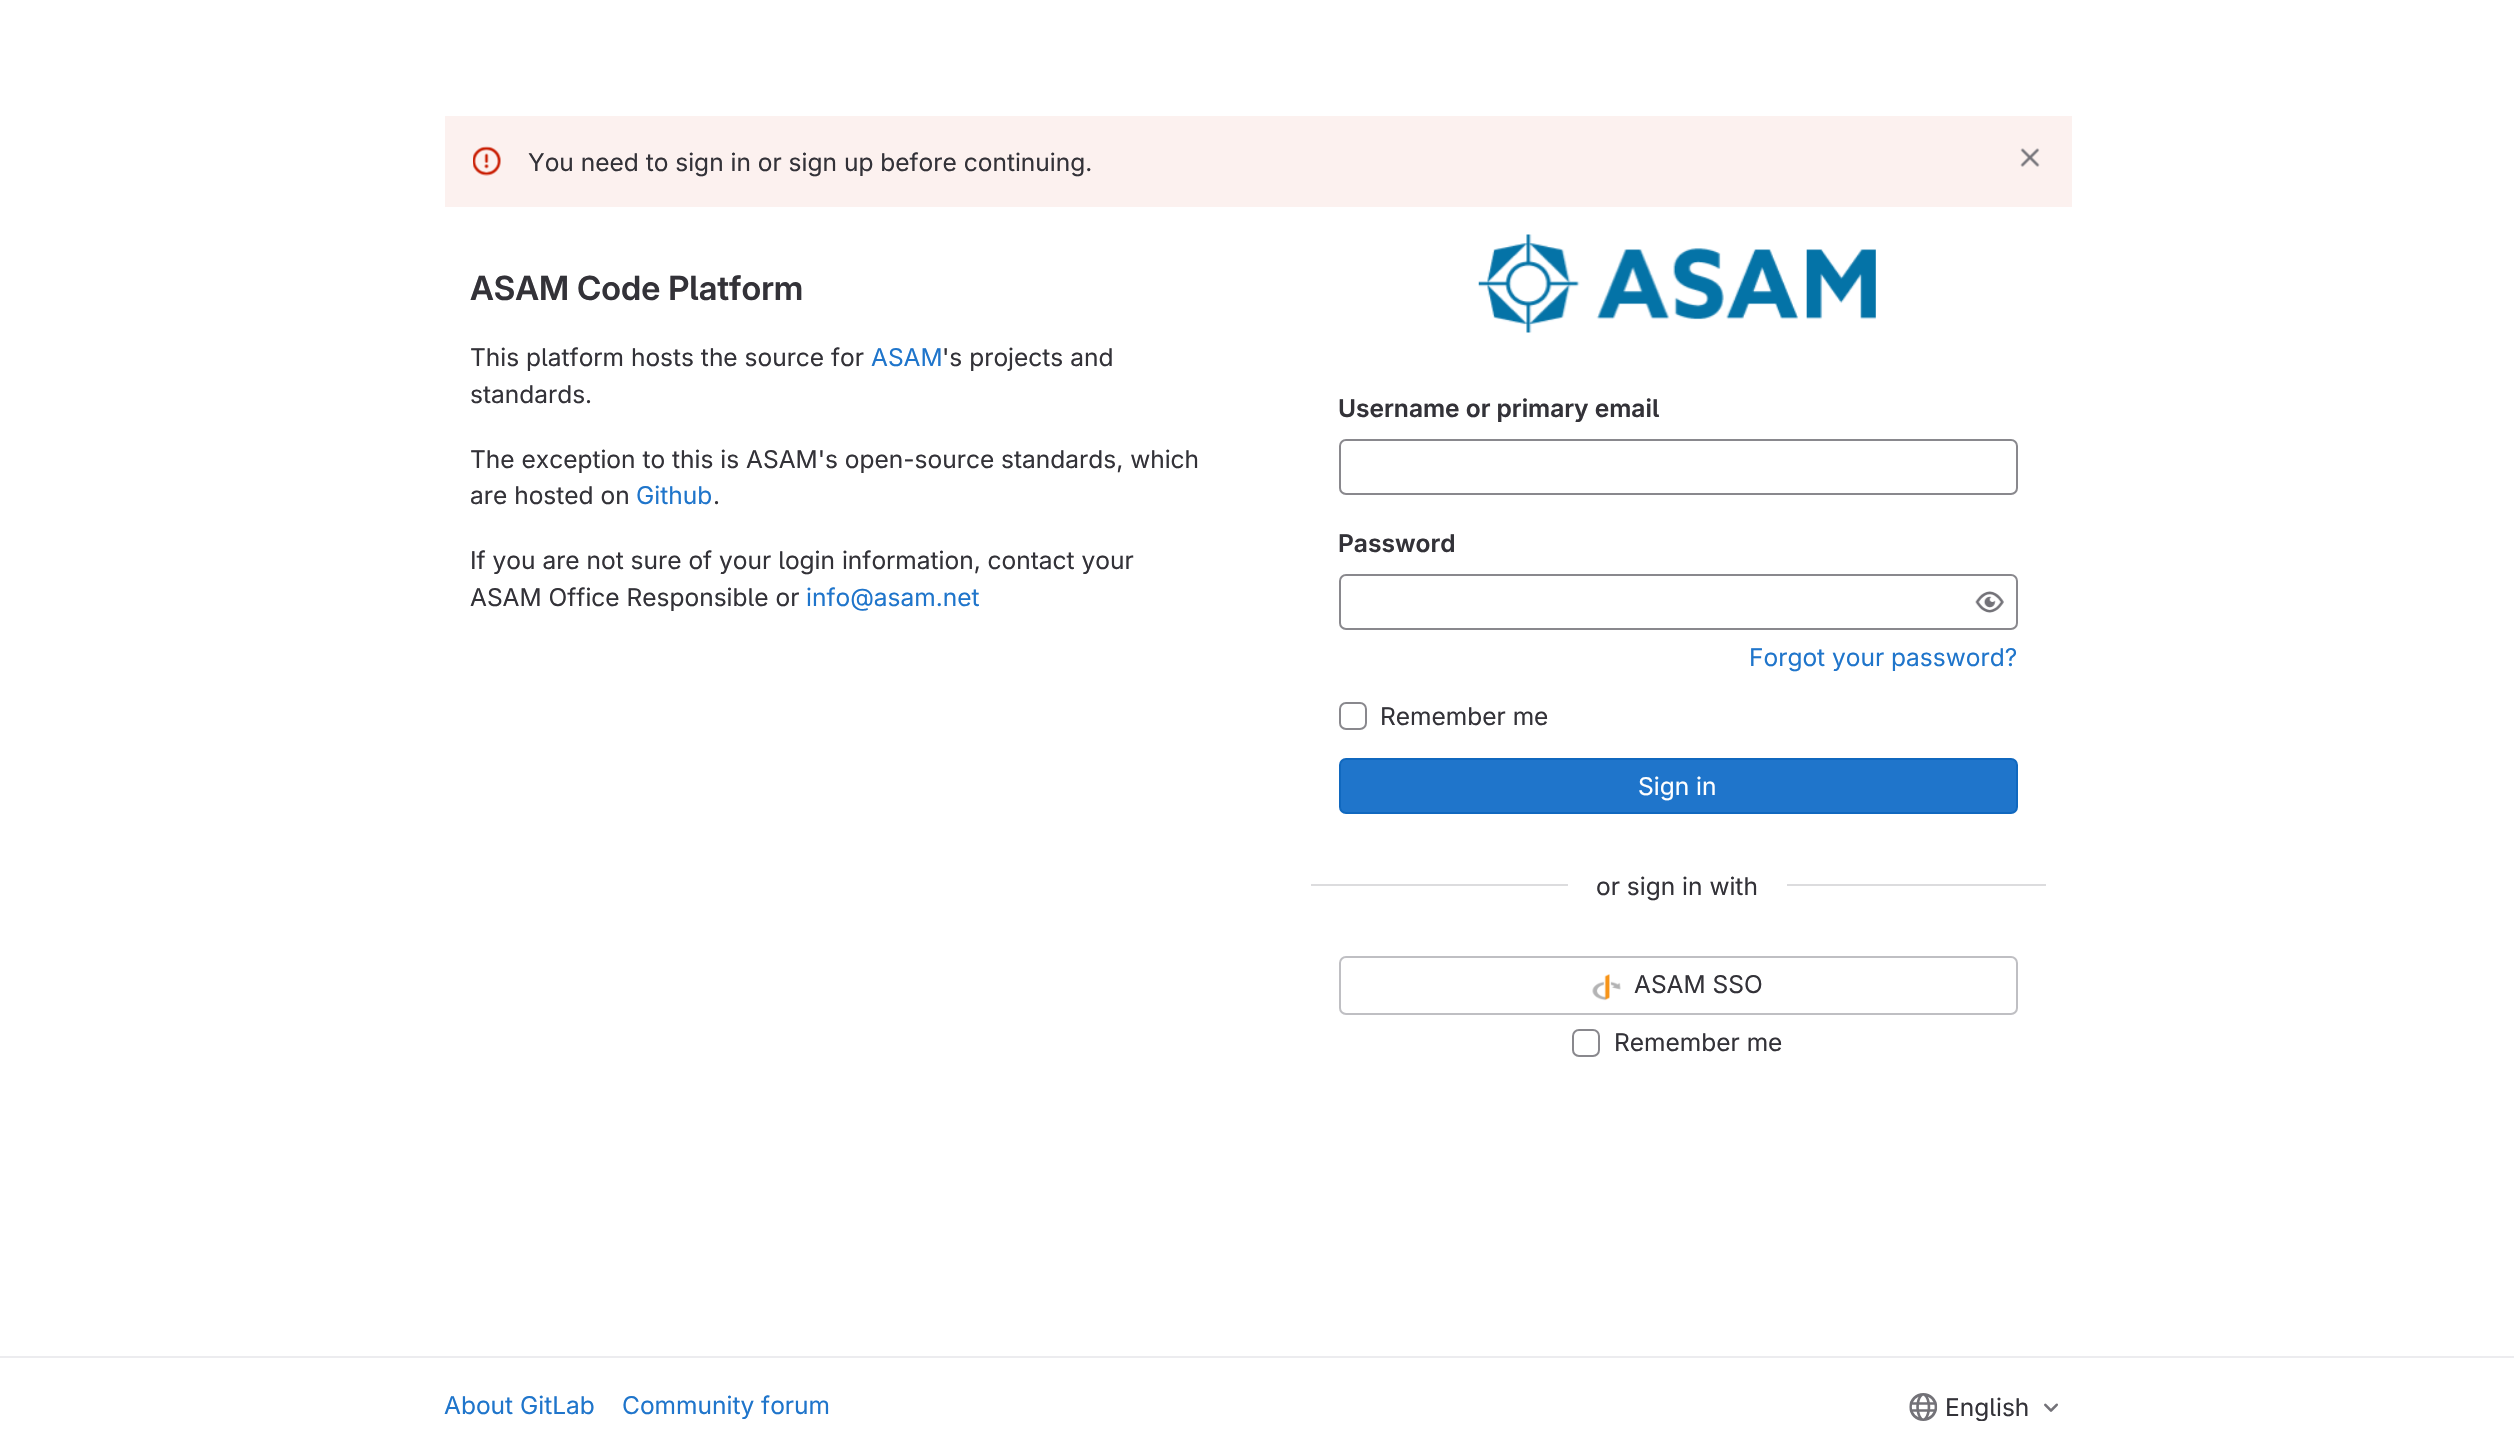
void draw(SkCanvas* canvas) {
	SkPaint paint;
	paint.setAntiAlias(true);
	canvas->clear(0xffffffff);
	paint.setColor(0xfffcf1ef);
	canvas->drawRect(SkRect::MakeXYWH(445, 116, 1627, 91), paint);
	canvas->drawImageRect(SkImages::DeferredFromEncodedData(SkData::MakeFromFileName("img1.png")), SkRect::MakeXYWH(473, 146, 28, 30), SkSamplingOptions());
	SkFont f1(fontMgr->matchFamilyStyle("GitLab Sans", SkFontStyle::Normal()), 24.5);
	f1.setSubpixel(true);
	paint.setColor(0xff333238);
	canvas->drawString("You need to sign in or sign up before continuing.", 528, 171, f1, paint);
	canvas->drawImageRect(SkImages::DeferredFromEncodedData(SkData::MakeFromFileName("img2.png")), SkRect::MakeXYWH(2020, 148, 20, 19), SkSamplingOptions());
	SkFont f2(fontMgr->matchFamilyStyle("GitLab Sans", SkFontStyle(600, SkFontStyle::kNormal_Width, SkFontStyle::kUpright_Slant)), 33.25);
	f2.setSubpixel(true);
	canvas->drawString("ASAM Code Platform", 470, 300, f2, paint);
	canvas->drawString("This platform hosts the source for", 470, 366, f1, paint);
	paint.setColor(0xff1f75cb);
	canvas->drawString("ASAM", 871, 366, f1, paint);
	paint.setColor(0xff333238);
	canvas->drawString("'s projects and", 942, 366, f1, paint);
	canvas->drawString("standards.", 470, 403, f1, paint);
	canvas->drawString("The exception to this is ASAM's open-source standards, which", 470, 468, f1, paint);
	canvas->drawString("are hosted on", 470, 504, f1, paint);
	paint.setColor(0xff1f75cb);
	canvas->drawString("Github", 636, 504, f1, paint);
	paint.setColor(0xff333238);
	canvas->drawString(".", 713, 504, f1, paint);
	canvas->drawString("If you are not sure of your login information, contact your", 470, 569, f1, paint);
	canvas->drawString("ASAM Office Responsible or", 470, 606, f1, paint);
	paint.setColor(0xff1f75cb);
	canvas->drawString("info@asam.net", 806, 606, f1, paint);
	canvas->drawImageRect(SkImages::DeferredFromEncodedData(SkData::MakeFromFileName("img3.png")), SkRect::MakeXYWH(1478, 234, 398, 99), SkSamplingOptions());
	SkFont f3(fontMgr->matchFamilyStyle("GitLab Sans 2", SkFontStyle(600, SkFontStyle::kNormal_Width, SkFontStyle::kUpright_Slant)), 24.5);
	f3.setSubpixel(true);
	paint.setColor(0xff333238);
	canvas->drawString("Username or primary email", 1338, 417, f3, paint);
	paint.setStroke(true);
	paint.setStrokeWidth(2);
	paint.setColor(0xff89888d);
	canvas->drawRoundRect(SkRect::MakeXYWH(1340, 440, 677, 54), 6, 6, paint);
	paint.setStroke(false);
	paint.setColor(0xff333238);
	canvas->drawString("Password", 1338, 552, f3, paint);
	paint.setStroke(true);
	paint.setColor(0xff89888d);
	canvas->drawRoundRect(SkRect::MakeXYWH(1340, 575, 677, 54), 6, 6, paint);
	canvas->drawImageRect(SkImages::DeferredFromEncodedData(SkData::MakeFromFileName("img4.png")), SkRect::MakeXYWH(1975, 591, 29, 22), SkSamplingOptions());
	paint.setStroke(false);
	paint.setColor(0xff1f75cb);
	canvas->drawString("Forgot your password?", 1749, 666, f1, paint);
	paint.setStroke(true);
	paint.setColor(0xff89888d);
	canvas->drawRoundRect(SkRect::MakeXYWH(1340, 703, 26, 26), 6, 6, paint);
	paint.setStroke(false);
	paint.setColor(0xff333238);
	canvas->drawString("Remember me", 1380, 725, f1, paint);
	paint.setColor(0xff1f75cb);
	canvas->drawRoundRect(SkRect::MakeXYWH(1340, 759, 677, 54), 6, 6, paint);
	paint.setStroke(true);
	paint.setColor(0xff1068bf);
	canvas->drawRoundRect(SkRect::MakeXYWH(1340, 759, 677, 54), 6, 6, paint);
	paint.setStroke(false);
	paint.setColor(0xffffffff);
	canvas->drawString("Sign in", 1638, 795, f1, paint);
	paint.setColor(0xffdcdcde);
	canvas->drawRect(SkRect::MakeXYWH(1311, 884, 257, 2), paint);
	paint.setColor(0xff333238);
	canvas->drawString("or sign in with", 1596, 895, f1, paint);
	paint.setColor(0xffdcdcde);
	canvas->drawRect(SkRect::MakeXYWH(1787, 884, 259, 2), paint);
	paint.setStroke(true);
	paint.setColor(0xffbfbfc3);
	canvas->drawRoundRect(SkRect::MakeXYWH(1340, 957, 677, 57), 6, 6, paint);
	canvas->drawImageRect(SkImages::DeferredFromEncodedData(SkData::MakeFromFileName("img5.png")), SkRect::MakeXYWH(1592, 974, 29, 27), SkSamplingOptions());
	paint.setStroke(false);
	paint.setColor(0xff333238);
	canvas->drawString("ASAM SSO", 1634, 993, f1, paint);
	paint.setStroke(true);
	paint.setColor(0xff89888d);
	canvas->drawRoundRect(SkRect::MakeXYWH(1573, 1030, 26, 26), 6, 6, paint);
	paint.setStroke(false);
	paint.setColor(0xff333238);
	canvas->drawString("Remember me", 1614, 1051, f1, paint);
	paint.setColor(0xffececef);
	canvas->drawRect(SkRect::MakeXYWH(0, 1356, 2514, 2), paint);
	paint.setColor(0xff1f75cb);
	canvas->drawString("About GitLab", 444, 1414, f1, paint);
	canvas->drawString("Community forum", 622, 1414, f1, paint);
	canvas->drawImageRect(SkImages::DeferredFromEncodedData(SkData::MakeFromFileName("img6.png")), SkRect::MakeXYWH(1909, 1393, 29, 28), SkSamplingOptions());
	canvas->save();
	canvas->clipRect(SkRect::MakeXYWH(1944, 1393, 86, 28));
	paint.setColor(0xff333238);
	canvas->drawString("English", 1945, 1416, f1, paint);
	canvas->restore();
	canvas->drawImageRect(SkImages::DeferredFromEncodedData(SkData::MakeFromFileName("img7.png")), SkRect::MakeXYWH(2044, 1403, 14, 9), SkSamplingOptions());
}
